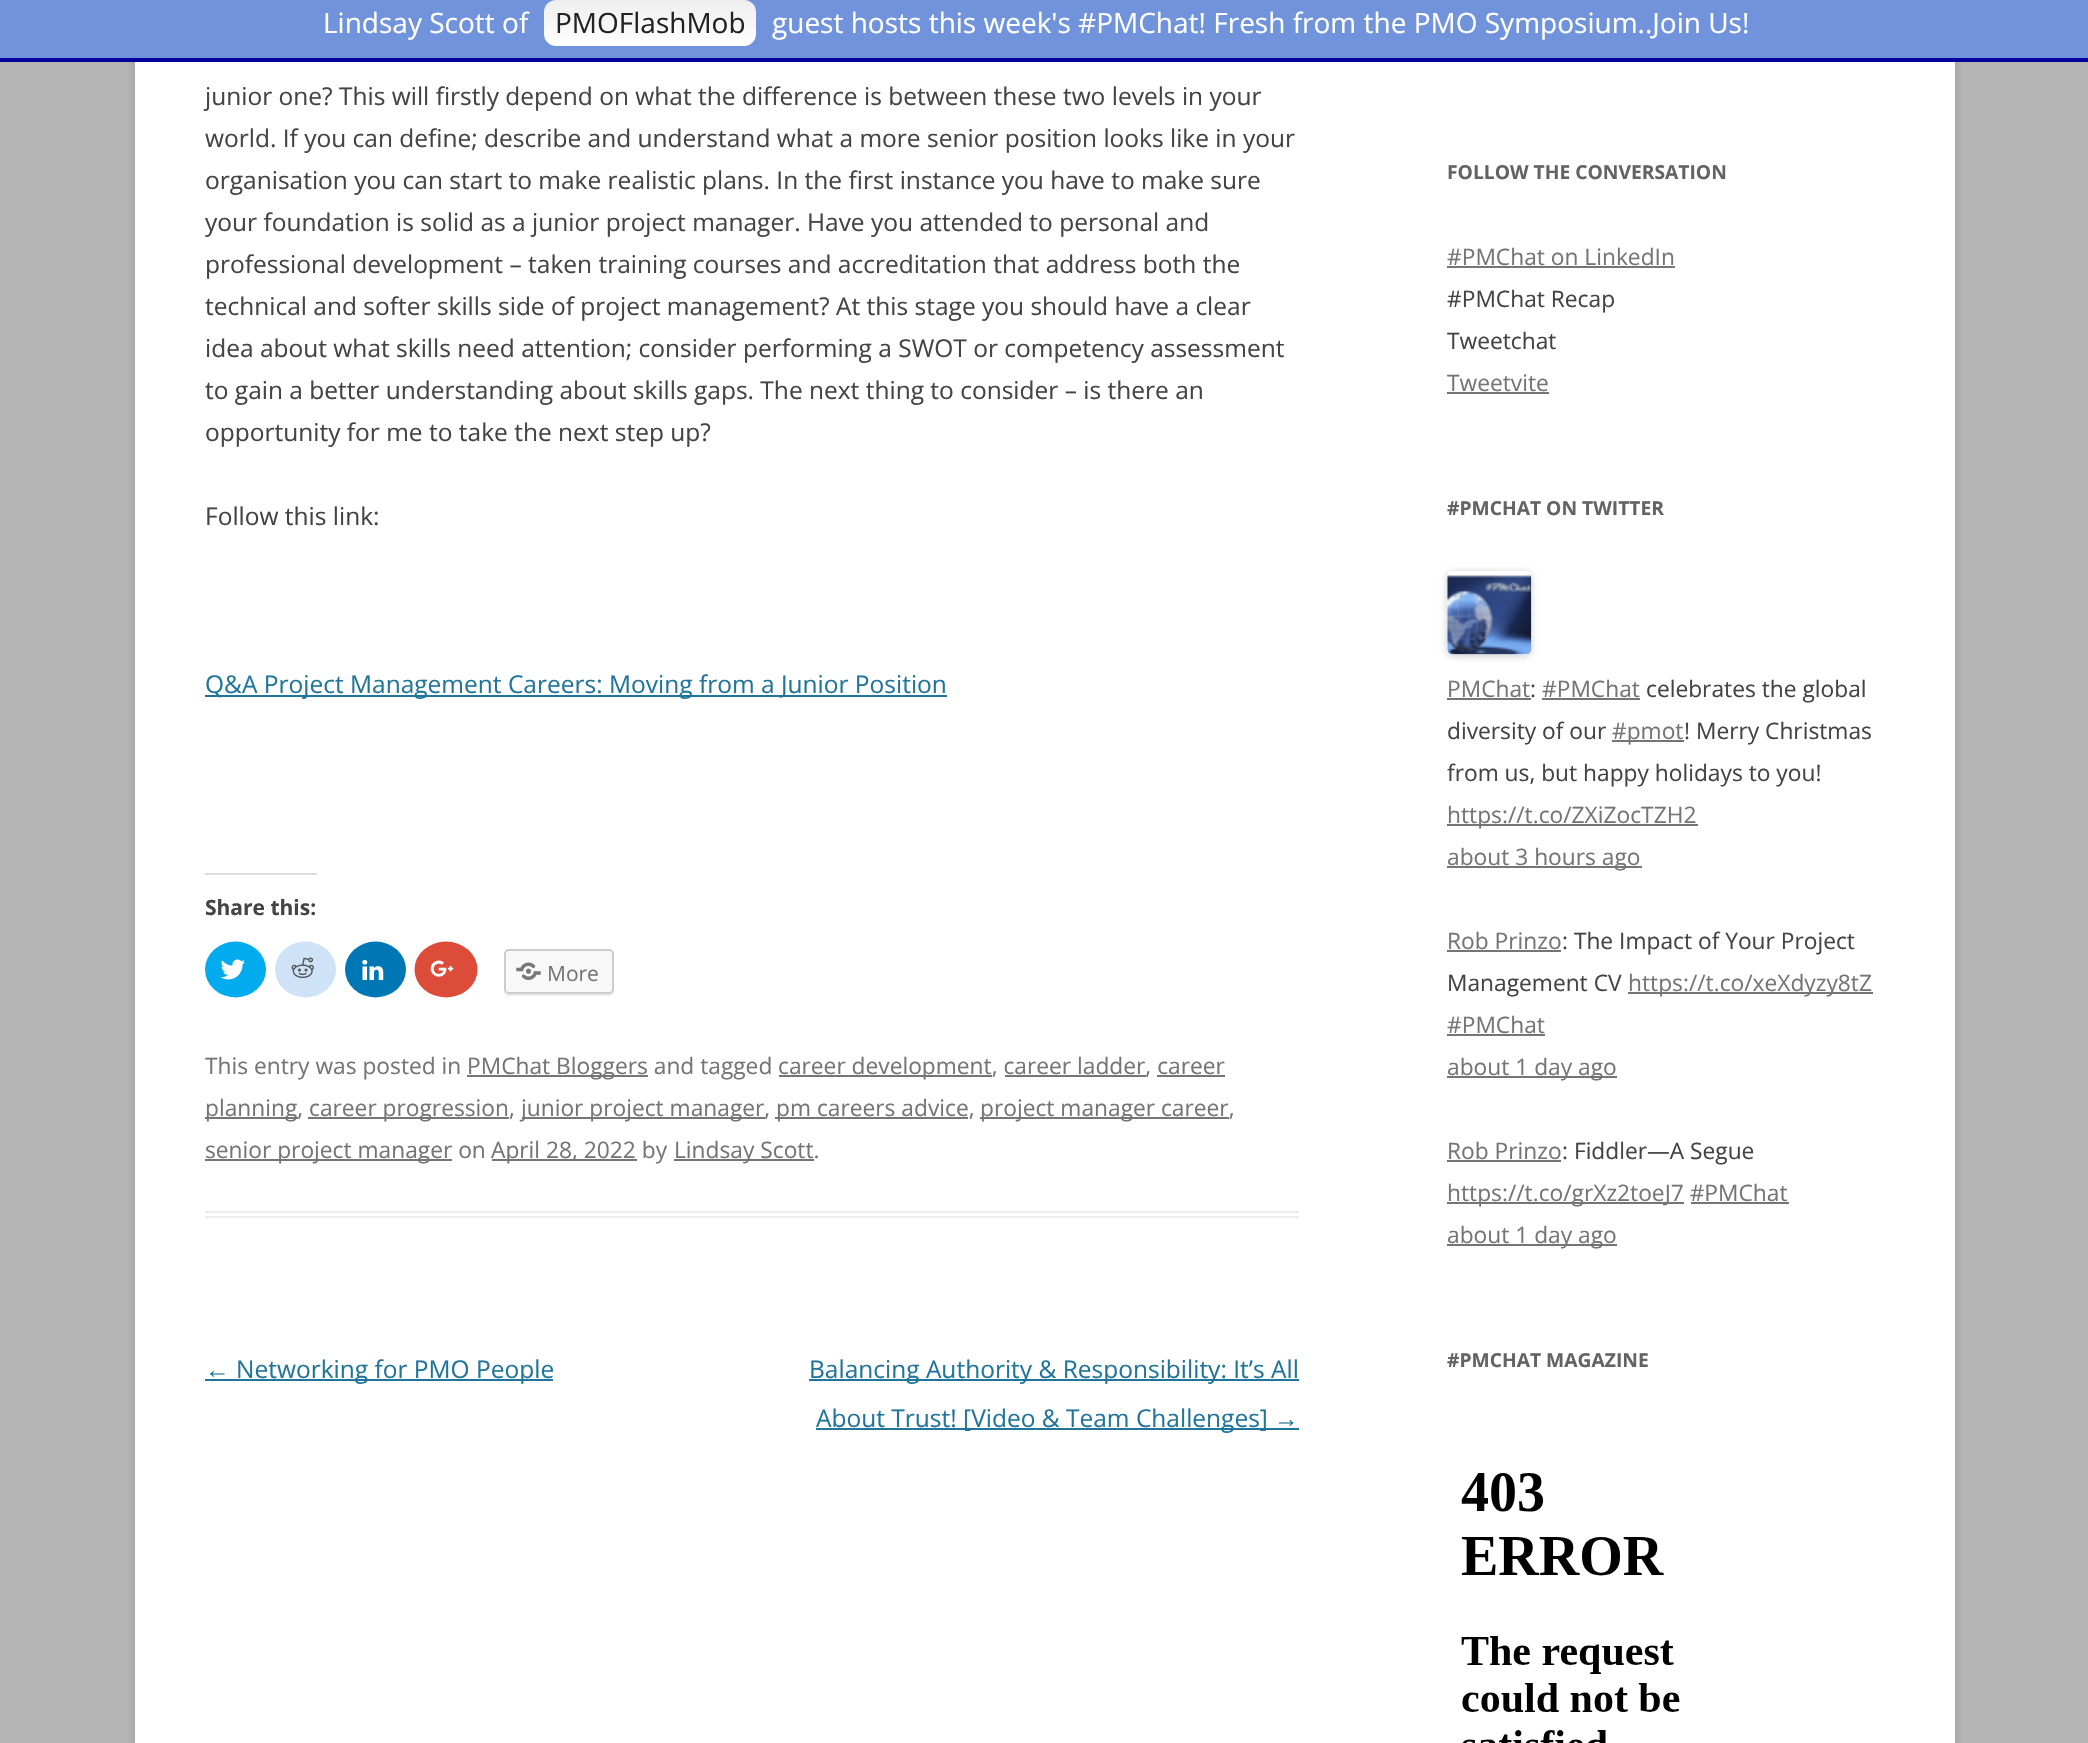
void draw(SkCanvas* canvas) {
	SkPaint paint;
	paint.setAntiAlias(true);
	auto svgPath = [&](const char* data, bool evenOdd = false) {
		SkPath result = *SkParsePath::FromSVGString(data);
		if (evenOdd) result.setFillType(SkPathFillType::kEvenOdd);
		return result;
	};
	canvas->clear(0xffb5b5b5);
	paint.setColor(0x4d646464);
	paint.setMaskFilter(SkMaskFilter::MakeBlur(kNormal_SkBlurStyle, 5));
	canvas->drawRect(SkRect::MakeXYWH(135, -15, 1820, 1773), paint);
	paint.setMaskFilter(nullptr);
	paint.setColor(0xff7093db);
	canvas->drawRect(SkRect::MakeXYWH(0, 0, 2088, 58), paint);
	paint.setColor(0xff00009c);
	canvas->drawRect(SkRect::MakeXYWH(0, 58, 2088, 4), paint);
	SkFont f1(fontMgr->matchFamilyStyle("Open Sans", SkFontStyle::Normal()), 28);
	f1.setSubpixel(true);
	paint.setColor(0xffffffff);
	canvas->drawString("Lindsay Scott of", 323, 33, f1, paint);
	{
		const SkColor colors[] = {0xffeeeeee, 0xffffffff};
		const float stops[] = {0, 1};
		const SkPoint ends[] = {{650, 0}, {650, 46}};
		paint.setShader(SkGradientShader::MakeLinear(ends, colors, stops, 2, SkTileMode::kClamp));
		paint.setAlpha(255);
	}
	canvas->drawRoundRect(SkRect::MakeXYWH(544, 0, 212, 46), 12, 12, paint);
	paint.setShader(nullptr);
	paint.setColor(0xff222222);
	canvas->drawString("PMOFlashMob", 555, 33, f1, paint);
	paint.setColor(0xffffffff);
	canvas->drawString("guest hosts this week's #PMChat! Fresh from the PMO Symposium..Join Us!", 772, 33, f1, paint);
	canvas->drawRect(SkRect::MakeXYWH(135, 62, 1820, 1681), paint);
	paint.setColor(0xffededed);
	canvas->drawRect(SkRect::MakeXYWH(205, 1211, 1094, 2), paint);
	canvas->drawRect(SkRect::MakeXYWH(205, 1216, 1094, 2), paint);
	SkFont f2(fontMgr->matchFamilyStyle("Open Sans", SkFontStyle::Normal()), 24.5);
	f2.setSubpixel(true);
	paint.setColor(0xff444444);
	canvas->drawString("junior one? This will firstly depend on what the difference is between these two levels in your", 205, 105, f2, paint);
	canvas->drawString("world. If you can define; describe and understand what a more senior position looks like in your", 205, 147, f2, paint);
	canvas->drawString("organisation you can start to make realistic plans. In the first instance you have to make sure", 205, 189, f2, paint);
	canvas->drawString("your foundation is solid as a junior project manager. Have you attended to personal and", 205, 231, f2, paint);
	canvas->drawString("professional development – taken training courses and accreditation that address both the", 205, 273, f2, paint);
	canvas->drawString("technical and softer skills side of project management? At this stage you should have a clear", 205, 315, f2, paint);
	canvas->drawString("idea about what skills need attention; consider performing a SWOT or competency assessment", 205, 357, f2, paint);
	canvas->drawString("to gain a better understanding about skills gaps. The next thing to consider – is there an", 205, 399, f2, paint);
	canvas->drawString("opportunity for me to take the next step up?", 205, 441, f2, paint);
	canvas->drawString("Follow this link:", 205, 525, f2, paint);
	paint.setColor(0xff21759b);
	canvas->drawRect(SkRect::MakeXYWH(205, 695, 742, 2), paint);
	canvas->drawString("Q&A Project Management Careers: Moving from a Junior Position", 205, 693, f2, paint);
	paint.setColor(0xffdddddd);
	canvas->drawRect(SkRect::MakeXYWH(205, 873, 112, 2), paint);
	SkFont f3(fontMgr->matchFamilyStyle("Open Sans", SkFontStyle::Bold()), 21);
	f3.setSubpixel(true);
	paint.setColor(0xff444444);
	canvas->drawString("Share this:", 205, 915, f3, paint);
	paint.setColor(0xff00acee);
	canvas->drawOval(SkRect::MakeXYWH(205, 941.5, 61, 56), paint);
	canvas->drawImageRect(SkImages::DeferredFromEncodedData(SkData::MakeFromFileName("img1.png")), SkRect::MakeXYWH(220, 959, 25, 21), SkSamplingOptions());
	paint.setColor(0xffcee3f8);
	canvas->drawOval(SkRect::MakeXYWH(275, 941.5, 61, 56), paint);
	canvas->drawImageRect(SkImages::DeferredFromEncodedData(SkData::MakeFromFileName("img2.png")), SkRect::MakeXYWH(291, 957, 23, 22), SkSamplingOptions());
	paint.setColor(0xff0077b5);
	canvas->drawOval(SkRect::MakeXYWH(345, 941.5, 61, 56), paint);
	canvas->drawImageRect(SkImages::DeferredFromEncodedData(SkData::MakeFromFileName("img3.png")), SkRect::MakeXYWH(362, 959, 22, 21), SkSamplingOptions());
	paint.setColor(0xffdd4b39);
	canvas->drawOval(SkRect::MakeXYWH(414.5, 941.5, 63, 56), paint);
	canvas->drawImageRect(SkImages::DeferredFromEncodedData(SkData::MakeFromFileName("img4.png")), SkRect::MakeXYWH(430, 960, 24, 17), SkSamplingOptions());
	paint.setColor(0xffebebeb);
	canvas->drawPath(svgPath("M504 989V991C504 994 506 996 509 996H609C612 996 614 994 614 991V990C613 992 611 994 609 994H509C506 994 504 992 504 989Z"), paint);
	paint.setColor(0xfff8f8f8);
	canvas->drawRoundRect(SkRect::MakeXYWH(505, 950, 108, 43), 4, 4, paint);
	paint.setStroke(true);
	paint.setStrokeWidth(2);
	paint.setColor(0xffcccccc);
	canvas->drawRoundRect(SkRect::MakeXYWH(505, 950, 108, 43), 4, 4, paint);
	canvas->drawImageRect(SkImages::DeferredFromEncodedData(SkData::MakeFromFileName("img5.png")), SkRect::MakeXYWH(516, 962, 25, 18), SkSamplingOptions());
	SkFont f4(fontMgr->matchFamilyStyle("Open Sans", SkFontStyle::Normal()), 21);
	f4.setSubpixel(true);
	paint.setStroke(false);
	paint.setColor(0xff757575);
	canvas->drawString("More", 547, 981, f4, paint);
	SkFont f5(fontMgr->matchFamilyStyle("Open Sans", SkFontStyle::Normal()), 22.75);
	f5.setSubpixel(true);
	canvas->drawString("This entry was posted in", 205, 1074, f5, paint);
	canvas->drawRect(SkRect::MakeXYWH(467, 1075, 181, 2), paint);
	canvas->drawString("PMChat Bloggers and tagged", 467, 1074, f5, paint);
	canvas->drawRect(SkRect::MakeXYWH(779, 1075, 213, 2), paint);
	canvas->drawString("career development, career ladder, career", 778, 1074, f5, paint);
	canvas->drawRect(SkRect::MakeXYWH(1005, 1075, 141, 2), paint);
	canvas->drawRect(SkRect::MakeXYWH(205, 1117, 93, 2), paint);
	canvas->drawString("planning,", 205, 1116, f5, paint);
	canvas->drawRect(SkRect::MakeXYWH(1157, 1075, 68, 2), paint);
	canvas->drawRect(SkRect::MakeXYWH(308, 1117, 201, 2), paint);
	canvas->drawString("career progression,", 309, 1116, f5, paint);
	canvas->drawRect(SkRect::MakeXYWH(522, 1117, 243, 2), paint);
	canvas->drawString("junior project manager,", 521, 1116, f5, paint);
	canvas->drawRect(SkRect::MakeXYWH(775, 1117, 193, 2), paint);
	canvas->drawString("pm careers advice,", 776, 1116, f5, paint);
	canvas->drawRect(SkRect::MakeXYWH(980, 1117, 249, 2), paint);
	canvas->drawString("project manager career,", 980, 1116, f5, paint);
	canvas->drawRect(SkRect::MakeXYWH(205, 1159, 247, 2), paint);
	canvas->drawString("senior project manager on", 205, 1158, f5, paint);
	canvas->drawRect(SkRect::MakeXYWH(492, 1159, 145, 2), paint);
	canvas->drawString("April 28, 2022 by", 491, 1158, f5, paint);
	canvas->drawRect(SkRect::MakeXYWH(674, 1159, 140, 2), paint);
	canvas->drawString("Lindsay Scott.", 674, 1158, f5, paint);
	SkFont f6(fontMgr->matchFamilyStyle("Liberation Sans", SkFontStyle::Normal()), 24.5);
	f6.setSubpixel(true);
	paint.setColor(0xff21759b);
	canvas->drawString("←", 205, 1378, f6, paint);
	canvas->drawRect(SkRect::MakeXYWH(205, 1379, 348, 2), paint);
	canvas->drawString("Networking for PMO People", 236, 1378, f2, paint);
	canvas->drawRect(SkRect::MakeXYWH(809, 1379, 490, 2), paint);
	canvas->drawString("Balancing Authority & Responsibility: It’s All", 809, 1378, f2, paint);
	canvas->drawRect(SkRect::MakeXYWH(816, 1428, 483, 2), paint);
	canvas->drawString("About Trust! [Video & Team Challenges]", 816, 1427, f2, paint);
	canvas->drawString("→", 1274, 1427, f6, paint);
	SkFont f7(fontMgr->matchFamilyStyle("Open Sans", SkFontStyle::Bold()), 19.25);
	f7.setSubpixel(true);
	paint.setColor(0xff636363);
	canvas->drawString("FOLLOW THE CONVERSATION", 1447, 179, f7, paint);
	paint.setColor(0xff757575);
	canvas->drawString("#PMChat on LinkedIn", 1447, 265, f5, paint);
	canvas->drawRect(SkRect::MakeXYWH(1447, 266, 228, 2), paint);
	paint.setColor(0xff444444);
	canvas->drawString("#PMChat Recap", 1447, 307, f5, paint);
	canvas->drawString("Tweetchat", 1447, 349, f5, paint);
	paint.setColor(0xff757575);
	canvas->drawString("Tweetvite", 1447, 391, f5, paint);
	canvas->drawRect(SkRect::MakeXYWH(1447, 392, 102, 2), paint);
	paint.setColor(0xff636363);
	canvas->drawString("#PMCHAT ON TWITTER", 1447, 515, f7, paint);
	canvas->save();
	canvas->clipPath(svgPath("M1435 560H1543V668H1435ZM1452 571H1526C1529 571 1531 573 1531 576V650C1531 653 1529 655 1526 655H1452C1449 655 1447 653 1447 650V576C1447 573 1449 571 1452 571Z", true), true);
	paint.setColor(0x33000000);
	paint.setMaskFilter(SkMaskFilter::MakeBlur(kNormal_SkBlurStyle, 3.5));
	canvas->drawRoundRect(SkRect::MakeXYWH(1447, 572, 84, 84), 5, 5, paint);
	paint.setMaskFilter(nullptr);
	canvas->restore();
	canvas->drawImageRect(SkImages::DeferredFromEncodedData(SkData::MakeFromFileName("img6.png")), SkRect::MakeXYWH(1447, 574, 85, 81), SkSamplingOptions());
	paint.setColor(0xff757575);
	canvas->drawString("PMChat", 1447, 697, f5, paint);
	paint.setColor(0xff444444);
	canvas->drawString(":", 1530, 697, f5, paint);
	paint.setColor(0xff757575);
	canvas->drawRect(SkRect::MakeXYWH(1447, 698, 84, 2), paint);
	canvas->drawString("#PMChat", 1542, 697, f5, paint);
	canvas->drawRect(SkRect::MakeXYWH(1542, 698, 98, 2), paint);
	paint.setColor(0xff444444);
	canvas->drawString("celebrates the global", 1646, 697, f5, paint);
	canvas->drawString("diversity of our", 1447, 739, f5, paint);
	paint.setColor(0xff757575);
	canvas->drawRect(SkRect::MakeXYWH(1612, 740, 72, 2), paint);
	canvas->drawString("#pmot", 1612, 739, f5, paint);
	paint.setColor(0xff444444);
	canvas->drawString("! Merry Christmas", 1684, 739, f5, paint);
	canvas->drawString("from us, but happy holidays to you!", 1447, 781, f5, paint);
	paint.setColor(0xff757575);
	canvas->drawRect(SkRect::MakeXYWH(1447, 824, 251, 2), paint);
	canvas->drawString("https://t.co/ZXiZocTZH2", 1447, 823, f5, paint);
	canvas->drawRect(SkRect::MakeXYWH(1447, 866, 195, 2), paint);
	canvas->drawString("about 3 hours ago", 1447, 865, f5, paint);
	canvas->drawString("Rob Prinzo", 1447, 949, f5, paint);
	paint.setColor(0xff444444);
	canvas->drawString(": The Impact of Your Project", 1562, 949, f5, paint);
	paint.setColor(0xff757575);
	canvas->drawRect(SkRect::MakeXYWH(1447, 950, 114, 2), paint);
	paint.setColor(0xff444444);
	canvas->drawString("Management CV", 1447, 991, f5, paint);
	paint.setColor(0xff757575);
	canvas->drawRect(SkRect::MakeXYWH(1628, 992, 245, 2), paint);
	canvas->drawString("https://t.co/xeXdyzy8tZ", 1628, 991, f5, paint);
	canvas->drawString("#PMChat", 1447, 1033, f5, paint);
	canvas->drawRect(SkRect::MakeXYWH(1447, 1034, 98, 2), paint);
	canvas->drawRect(SkRect::MakeXYWH(1447, 1076, 170, 2), paint);
	canvas->drawString("about 1 day ago", 1447, 1075, f5, paint);
	canvas->drawString("Rob Prinzo", 1447, 1159, f5, paint);
	paint.setColor(0xff444444);
	canvas->drawString(": Fiddler—A Segue", 1562, 1159, f5, paint);
	paint.setColor(0xff757575);
	canvas->drawRect(SkRect::MakeXYWH(1447, 1160, 114, 2), paint);
	canvas->drawRect(SkRect::MakeXYWH(1447, 1202, 237, 2), paint);
	canvas->drawString("https://t.co/grXz2toeJ7 #PMChat", 1447, 1201, f5, paint);
	canvas->drawRect(SkRect::MakeXYWH(1691, 1202, 98, 2), paint);
	canvas->drawRect(SkRect::MakeXYWH(1447, 1244, 170, 2), paint);
	canvas->drawString("about 1 day ago", 1447, 1243, f5, paint);
	paint.setColor(0xff636363);
	canvas->drawString("#PMCHAT MAGAZINE", 1447, 1367, f7, paint);
	canvas->drawImageRect(SkImages::DeferredFromEncodedData(SkData::MakeFromFileName("img7.png")), SkRect::MakeXYWH(1461, 1473, 219, 270), SkSamplingOptions());
}
